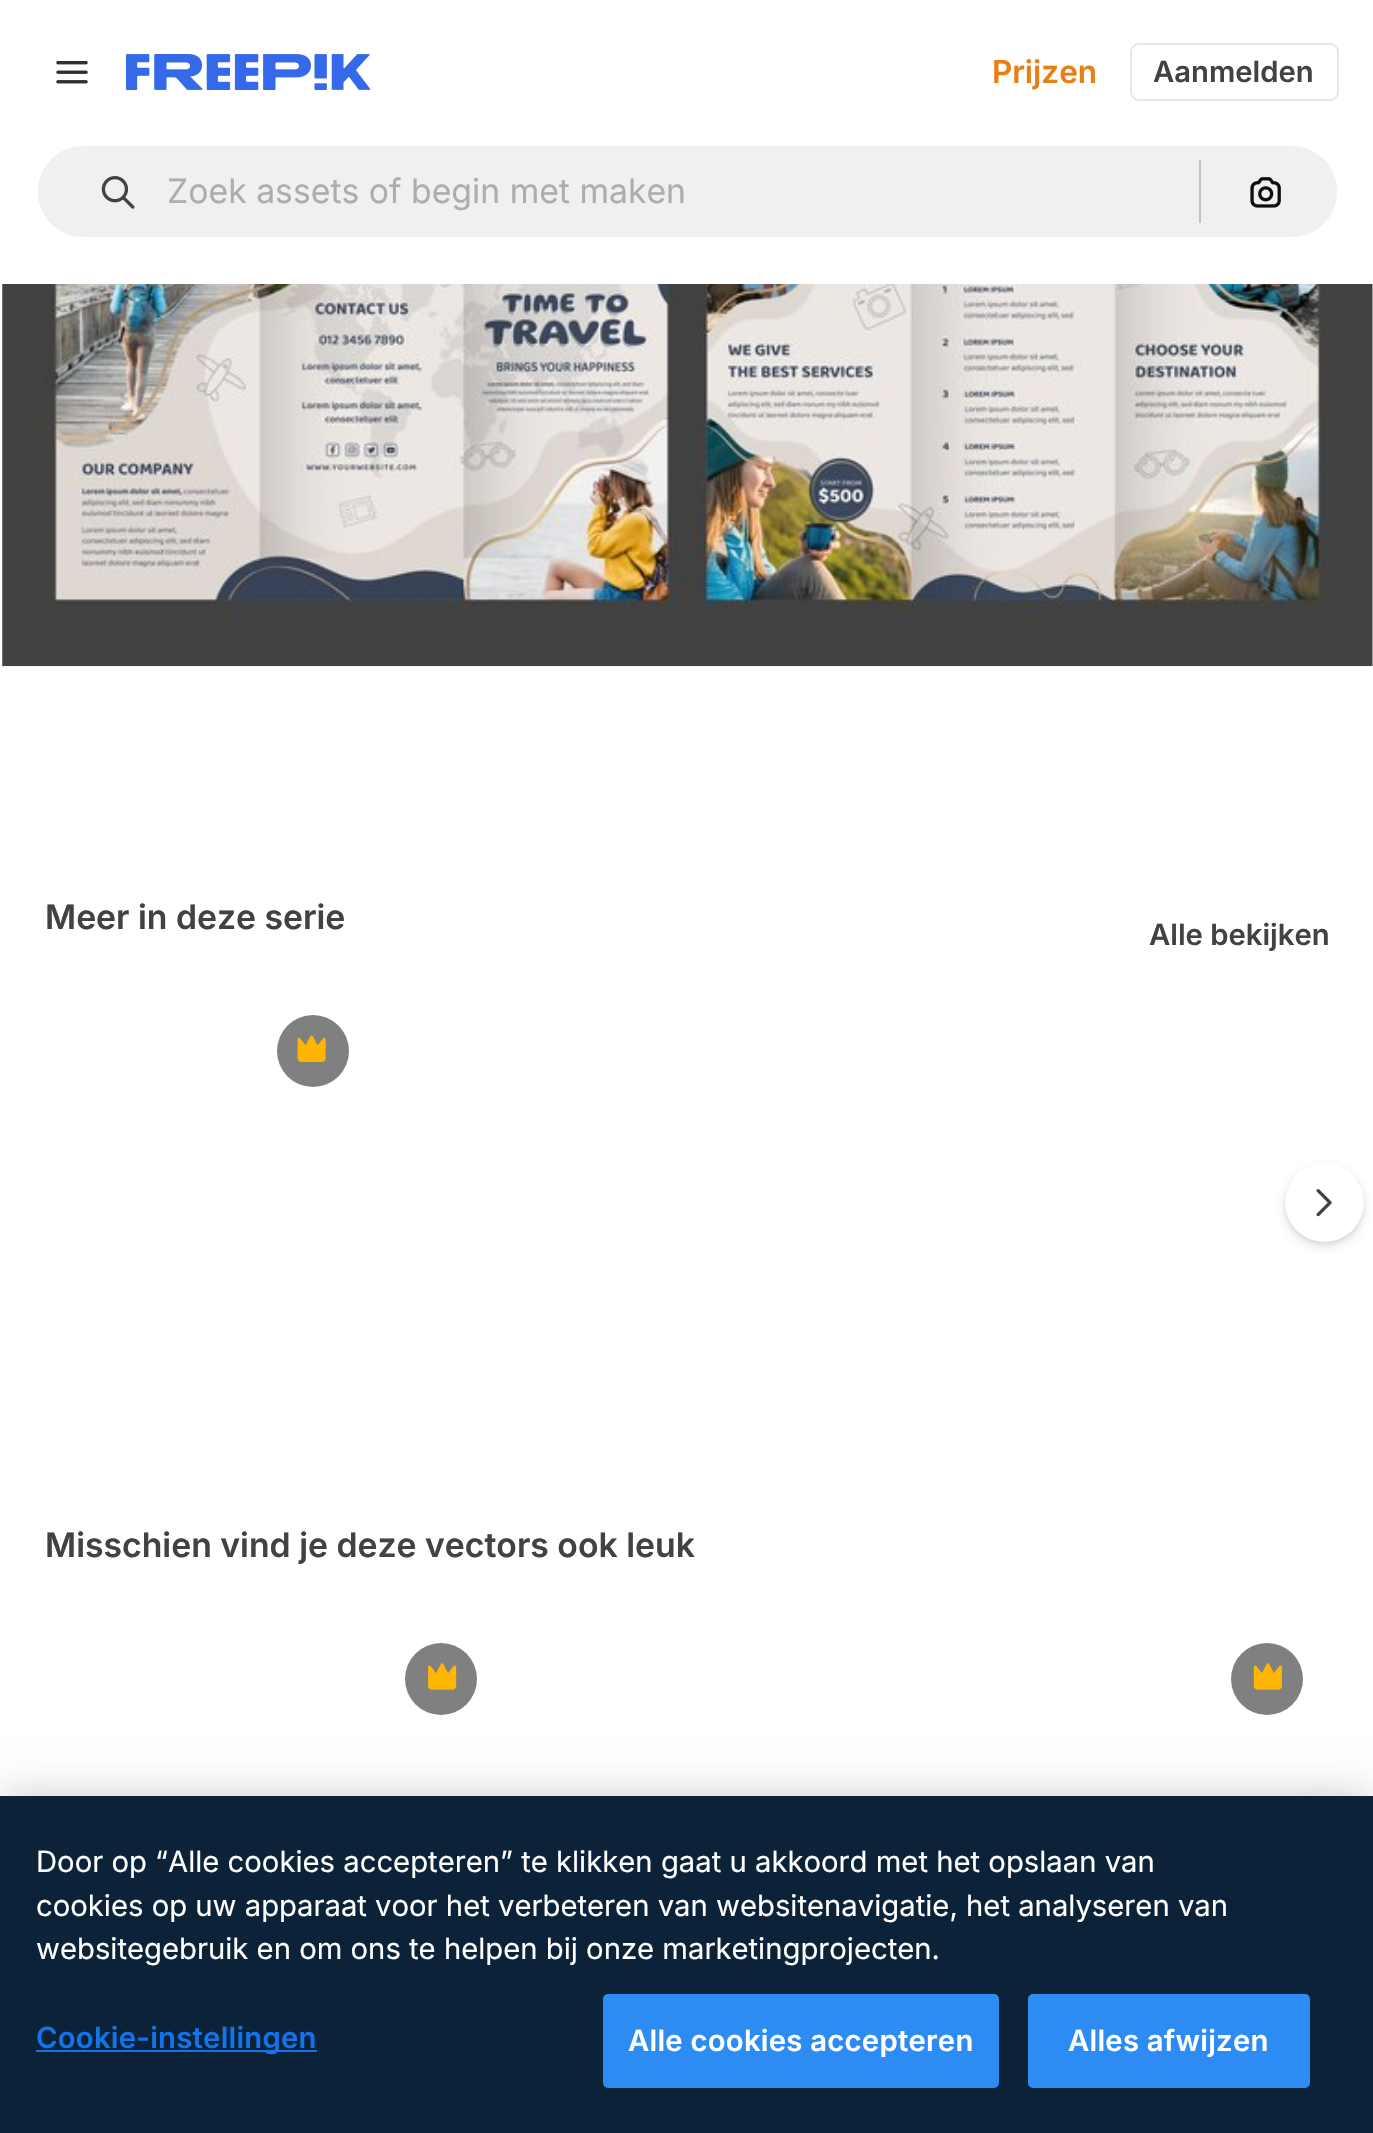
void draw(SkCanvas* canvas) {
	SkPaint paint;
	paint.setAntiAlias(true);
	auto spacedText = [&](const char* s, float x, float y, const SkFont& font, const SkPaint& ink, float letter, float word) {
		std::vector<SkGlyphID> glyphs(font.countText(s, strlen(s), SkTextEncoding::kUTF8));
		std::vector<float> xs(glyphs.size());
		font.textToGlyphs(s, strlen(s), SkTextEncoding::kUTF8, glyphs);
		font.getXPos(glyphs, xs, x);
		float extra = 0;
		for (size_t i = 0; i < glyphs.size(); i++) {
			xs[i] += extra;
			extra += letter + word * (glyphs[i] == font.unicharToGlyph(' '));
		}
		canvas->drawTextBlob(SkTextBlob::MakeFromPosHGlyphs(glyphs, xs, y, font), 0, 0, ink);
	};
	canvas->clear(0xffffffff);
	canvas->drawImageRect(SkImages::DeferredFromEncodedData(SkData::MakeFromFileName("img1.png")), SkRect::MakeXYWH(56, 61, 32, 23), SkSamplingOptions());
	canvas->drawImageRect(SkImages::DeferredFromEncodedData(SkData::MakeFromFileName("img2.png")), SkRect::MakeXYWH(126, 54, 245, 36), SkSamplingOptions());
	SkFont f1(fontMgr->matchFamilyStyle("Inter", SkFontStyle(600, SkFontStyle::kNormal_Width, SkFontStyle::kUpright_Slant)), 31.5);
	f1.setSubpixel(true);
	paint.setColor(0xffea7e11);
	canvas->drawString("Prijzen", 992, 83, f1, paint);
	paint.setStroke(true);
	paint.setStrokeWidth(2);
	paint.setColor(0xffe7e7e7);
	canvas->drawRoundRect(SkRect::MakeXYWH(1131, 44, 207, 56), 8, 8, paint);
	SkFont f2(fontMgr->matchFamilyStyle("Inter", SkFontStyle(600, SkFontStyle::kNormal_Width, SkFontStyle::kUpright_Slant)), 29.25);
	f2.setSubpixel(true);
	paint.setStroke(false);
	paint.setColor(0xff424242);
	canvas->drawString("Aanmelden", 1153, 82, f2, paint);
	paint.setColor(0xfff0f0f0);
	canvas->drawRoundRect(SkRect::MakeXYWH(37, 145, 1301, 93), 46.5, 46.5, paint);
	paint.setStroke(true);
	paint.setColor(0xffffffff);
	canvas->drawRoundRect(SkRect::MakeXYWH(37, 145, 1301, 93), 46.5, 46.5, paint);
	canvas->drawImageRect(SkImages::DeferredFromEncodedData(SkData::MakeFromFileName("img3.png")), SkRect::MakeXYWH(101, 176, 34, 33), SkSamplingOptions());
	SkFont f3(fontMgr->matchFamilyStyle("Inter", SkFontStyle::Normal()), 33.75);
	f3.setSubpixel(true);
	paint.setStroke(false);
	paint.setColor(0xffadadad);
	canvas->drawString("Zoek assets of begin met maken", 167, 203, f3, paint);
	paint.setColor(0xffc3c3c3);
	canvas->drawRect(SkRect::MakeXYWH(1199, 160, 2, 63), paint);
	canvas->drawImageRect(SkImages::DeferredFromEncodedData(SkData::MakeFromFileName("img4.png")), SkRect::MakeXYWH(1250, 177, 31, 31), SkSamplingOptions());
	canvas->drawImageRect(SkImages::DeferredFromEncodedData(SkData::MakeFromFileName("img5.png")), SkRect::MakeXYWH(2, 284, 1371, 383), SkSamplingOptions());
	SkFont f4(fontMgr->matchFamilyStyle("Inter", SkFontStyle(600, SkFontStyle::kNormal_Width, SkFontStyle::kUpright_Slant)), 33.75);
	f4.setSubpixel(true);
	paint.setColor(0xff424242);
	canvas->drawString("Meer in deze serie", 45, 929, f4, paint);
	canvas->drawString("Alle bekijken", 1149, 945, f2, paint);
	paint.setColor(0xff808080);
	canvas->drawCircle(313, 1051, 36, paint);
	canvas->drawImageRect(SkImages::DeferredFromEncodedData(SkData::MakeFromFileName("img6.png")), SkRect::MakeXYWH(297, 1035, 29, 27), SkSamplingOptions());
	paint.setColor(0x26374957);
	paint.setMaskFilter(SkMaskFilter::MakeBlur(kNormal_SkBlurStyle, 5.5));
	canvas->drawRoundRect(SkRect::MakeXYWH(1285, 1168, 79, 79), 39.5, 39.5, paint);
	paint.setMaskFilter(nullptr);
	paint.setColor(0x1a374957);
	paint.setMaskFilter(SkMaskFilter::MakeBlur(kNormal_SkBlurStyle, 2));
	canvas->drawRoundRect(SkRect::MakeXYWH(1285, 1166, 79, 78), 39, 39, paint);
	paint.setMaskFilter(nullptr);
	paint.setColor(0xffffffff);
	canvas->drawCircle(1324.5, 1202.5, 39.5, paint);
	canvas->drawImageRect(SkImages::DeferredFromEncodedData(SkData::MakeFromFileName("img7.png")), SkRect::MakeXYWH(1316, 1189, 16, 28), SkSamplingOptions());
	paint.setColor(0xff424242);
	canvas->drawString("Misschien vind je deze vectors ook leuk", 45, 1557, f4, paint);
	paint.setColor(0xff808080);
	canvas->drawCircle(441, 1679, 36, paint);
	canvas->drawImageRect(SkImages::DeferredFromEncodedData(SkData::MakeFromFileName("img8.png")), SkRect::MakeXYWH(428, 1663, 29, 27), SkSamplingOptions());
	canvas->drawCircle(1267, 1679, 36, paint);
	canvas->drawImageRect(SkImages::DeferredFromEncodedData(SkData::MakeFromFileName("img9.png")), SkRect::MakeXYWH(1253, 1663, 29, 27), SkSamplingOptions());
	paint.setColor(0x26374957);
	paint.setMaskFilter(SkMaskFilter::MakeBlur(kNormal_SkBlurStyle, 5.5));
	canvas->drawRoundRect(SkRect::MakeXYWH(1285, 1796, 79, 78), 39, 39, paint);
	paint.setMaskFilter(nullptr);
	paint.setColor(0xffffffff);
	canvas->drawCircle(1324.5, 1830.5, 39.5, paint);
	paint.setColor(0x33000000);
	paint.setMaskFilter(SkMaskFilter::MakeBlur(kNormal_SkBlurStyle, 20));
	canvas->drawRect(SkRect::MakeXYWH(0, 1796, 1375, 337), paint);
	paint.setMaskFilter(nullptr);
	paint.setColor(0xff0b2239);
	canvas->drawRect(SkRect::MakeXYWH(0, 1796, 1373, 337), paint);
	SkFont f5(fontMgr->matchFamilyStyle("Inter", SkFontStyle::Normal()), 29.25);
	f5.setSubpixel(true);
	paint.setColor(0xffffffff);
	canvas->drawString("Door op “Alle cookies accepteren” te klikken gaat u akkoord met het opslaan van", 36, 1872, f5, paint);
	canvas->drawString("cookies op uw apparaat voor het verbeteren van websitenavigatie, het analyseren van", 36, 1916, f5, paint);
	canvas->drawString("websitegebruik en om ons te helpen bij onze marketingprojecten.", 36, 1959, f5, paint);
	paint.setColor(0xff1273eb);
	canvas->drawRect(SkRect::MakeXYWH(36, 2050, 281, 2), paint);
	spacedText("Cookie-instellingen", 36, 2048, f2, paint, 0.25, 0);
	paint.setColor(0xff2c8cf4);
	canvas->drawRoundRect(SkRect::MakeXYWH(604, 1995, 394, 92), 4, 4, paint);
	paint.setStroke(true);
	canvas->drawRoundRect(SkRect::MakeXYWH(604, 1995, 394, 92), 4, 4, paint);
	paint.setStroke(false);
	paint.setColor(0xffffffff);
	spacedText("Alle cookies accepteren", 628, 2051, f2, paint, 0.25, 0);
	paint.setColor(0xff2c8cf4);
	canvas->drawRoundRect(SkRect::MakeXYWH(1029, 1995, 280, 92), 4, 4, paint);
	paint.setStroke(true);
	canvas->drawRoundRect(SkRect::MakeXYWH(1029, 1995, 280, 92), 4, 4, paint);
	paint.setStroke(false);
	paint.setColor(0xffffffff);
	spacedText("Alles afwijzen", 1068, 2051, f2, paint, 0.25, 0);
}
